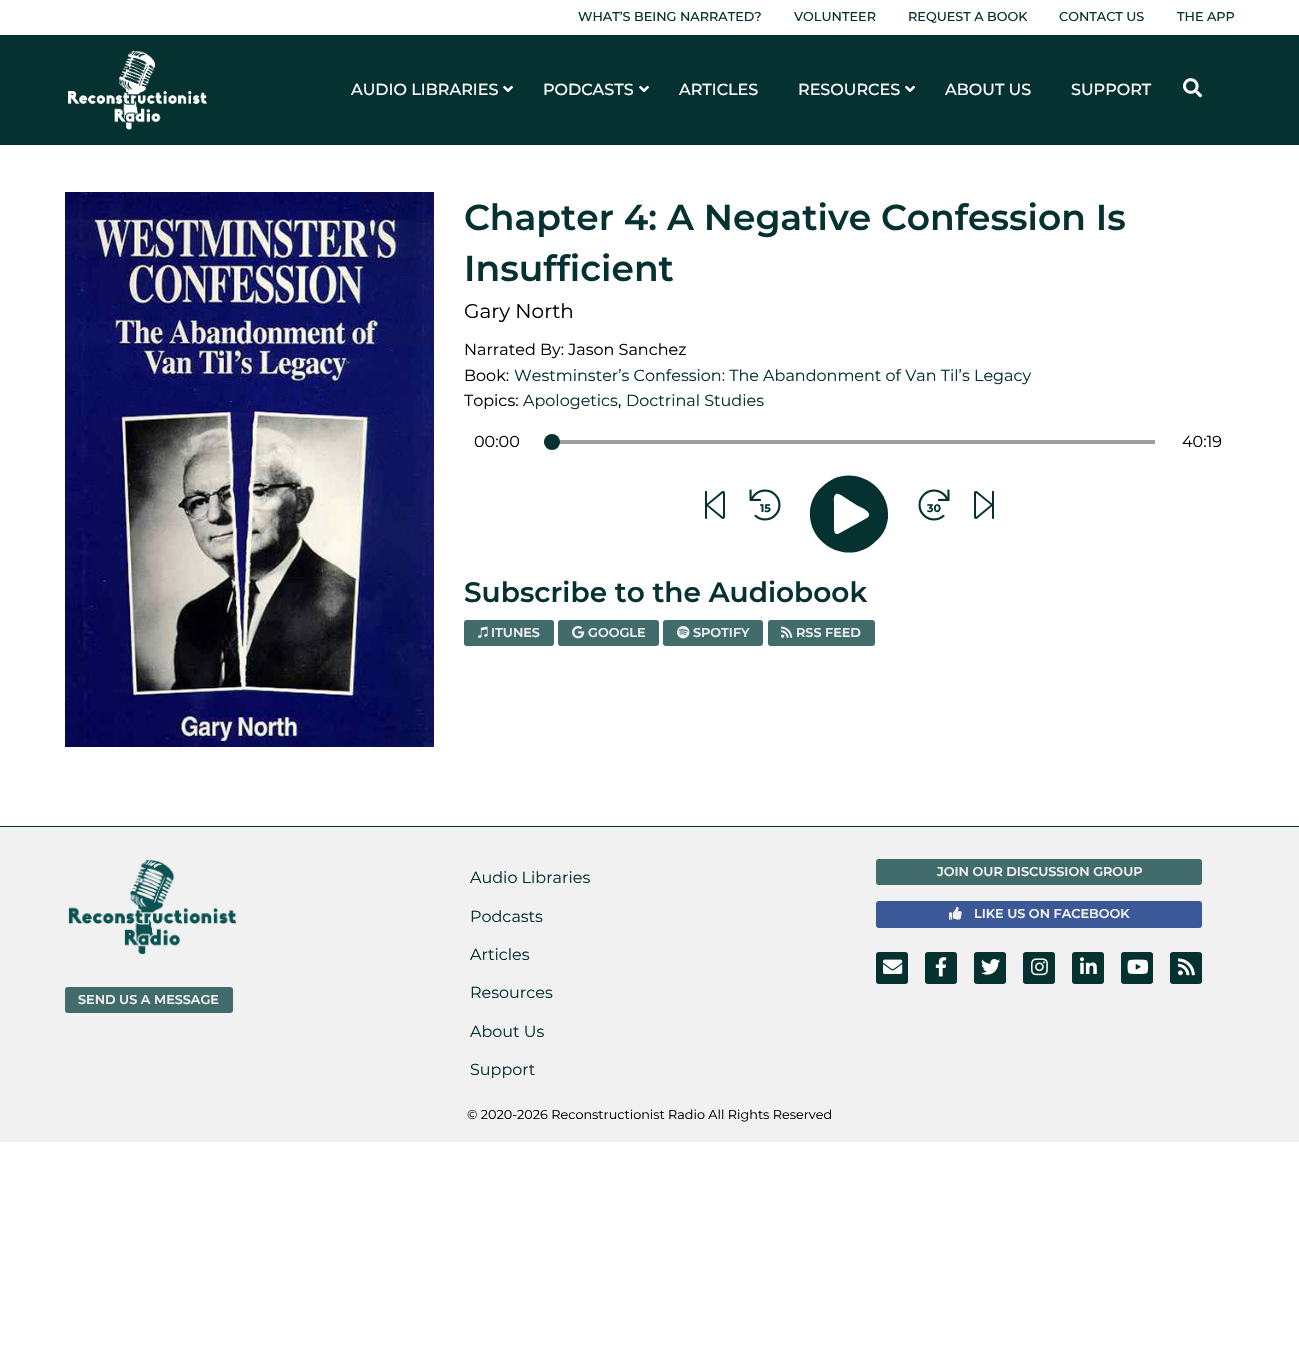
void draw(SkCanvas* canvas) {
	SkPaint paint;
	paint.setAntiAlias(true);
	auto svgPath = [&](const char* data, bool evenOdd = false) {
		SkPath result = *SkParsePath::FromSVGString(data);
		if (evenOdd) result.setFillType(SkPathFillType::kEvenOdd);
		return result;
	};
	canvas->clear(0xffffffff);
	SkFont f1(fontMgr->matchFamilyStyle("Montserrat", SkFontStyle(500, SkFontStyle::kNormal_Width, SkFontStyle::kUpright_Slant)), 12.8);
	f1.setSubpixel(true);
	paint.setColor(0xff063131);
	canvas->drawString("WHAT’S BEING NARRATED?", 578, 21, f1, paint);
	canvas->drawString("VOLUNTEER", 794, 21, f1, paint);
	canvas->drawString("REQUEST A BOOK", 908, 21, f1, paint);
	canvas->drawString("CONTACT US", 1059, 21, f1, paint);
	canvas->drawString("THE APP", 1177, 21, f1, paint);
	canvas->drawRect(SkRect::MakeXYWH(0, 35, 1299, 110), paint);
	canvas->drawImageRect(SkImages::DeferredFromEncodedData(SkData::MakeFromFileName("img1.png")), SkRect::MakeXYWH(68, 50, 139, 80), SkSamplingOptions());
	SkFont f2(fontMgr->matchFamilyStyle("Montserrat", SkFontStyle(500, SkFontStyle::kNormal_Width, SkFontStyle::kUpright_Slant)), 16);
	f2.setSubpixel(true);
	paint.setColor(0xffffffff);
	canvas->drawString("AUDIO LIBRARIES", 351, 95, f2, paint);
	canvas->drawImageRect(SkImages::DeferredFromEncodedData(SkData::MakeFromFileName("img2.png")), SkRect::MakeXYWH(503, 85, 10, 8), SkSamplingOptions());
	canvas->drawString("PODCASTS", 543, 95, f2, paint);
	canvas->drawImageRect(SkImages::DeferredFromEncodedData(SkData::MakeFromFileName("img2.png")), SkRect::MakeXYWH(639, 85, 10, 8), SkSamplingOptions());
	canvas->drawString("ARTICLES", 679, 95, f2, paint);
	canvas->drawString("RESOURCES", 798, 95, f2, paint);
	canvas->drawImageRect(SkImages::DeferredFromEncodedData(SkData::MakeFromFileName("img2.png")), SkRect::MakeXYWH(905, 85, 10, 8), SkSamplingOptions());
	canvas->drawString("ABOUT US", 945, 95, f2, paint);
	canvas->drawString("SUPPORT", 1071, 95, f2, paint);
	canvas->drawImageRect(SkImages::DeferredFromEncodedData(SkData::MakeFromFileName("img3.png")), SkRect::MakeXYWH(1183, 78, 20, 20), SkSamplingOptions());
	canvas->drawImageRect(SkImages::DeferredFromEncodedData(SkData::MakeFromFileName("img4.png")), SkRect::MakeXYWH(65, 192, 369, 555), SkSamplingOptions());
	SkFont f3(fontMgr->matchFamilyStyle("Montserrat", SkFontStyle(600, SkFontStyle::kNormal_Width, SkFontStyle::kUpright_Slant)), 36);
	f3.setSubpixel(true);
	paint.setColor(0xff063131);
	canvas->drawString("Chapter 4: A Negative Confession Is", 464, 230, f3, paint);
	canvas->drawString("Insufficient", 464, 281, f3, paint);
	SkFont f4(fontMgr->matchFamilyStyle("Montserrat", SkFontStyle::Normal()), 20);
	f4.setSubpixel(true);
	paint.setColor(0xff000000);
	canvas->drawString("Gary North", 464, 318, f4, paint);
	SkFont f5(fontMgr->matchFamilyStyle("Montserrat", SkFontStyle::Normal()), 16);
	f5.setSubpixel(true);
	canvas->drawString("Narrated By: Jason Sanchez", 464, 355, f5, paint);
	canvas->drawString("Book:", 464, 381, f5, paint);
	paint.setColor(0xff063131);
	canvas->drawString("Westminster’s Confession: The Abandonment of Van Til’s Legacy", 514, 381, f5, paint);
	paint.setColor(0xff000000);
	canvas->drawString("Topics:", 464, 406, f5, paint);
	paint.setColor(0xff063131);
	canvas->drawString("Apologetics", 523, 406, f5, paint);
	paint.setColor(0xff000000);
	canvas->drawString(",", 618, 406, f5, paint);
	paint.setColor(0xff063131);
	canvas->drawString("Doctrinal Studies", 626, 406, f5, paint);
	paint.setColor(0xff000000);
	canvas->drawString("00:00", 474, 447, f5, paint);
	paint.setColor(0xff9d9d9d);
	canvas->drawRect(SkRect::MakeXYWH(544, 440, 611, 4), paint);
	paint.setColor(0xff063131);
	canvas->drawCircle(552, 442, 8, paint);
	paint.setColor(0xff000000);
	canvas->drawString("40:19", 1182, 447, f5, paint);
	canvas->drawImageRect(SkImages::DeferredFromEncodedData(SkData::MakeFromFileName("img5.png")), SkRect::MakeXYWH(705, 490, 20, 29), SkSamplingOptions());
	canvas->drawImageRect(SkImages::DeferredFromEncodedData(SkData::MakeFromFileName("img6.png")), SkRect::MakeXYWH(749, 489, 32, 32), SkSamplingOptions());
	SkFont f6(fontMgr->matchFamilyStyle("Montserrat", SkFontStyle::Bold()), 11);
	f6.setSubpixel(true);
	paint.setColor(0xff063131);
	canvas->drawString("15", 760, 512, f6, paint);
	canvas->drawPath(svgPath("M822 487C847 461 891 482 888 518C887 527 883 535 876 541C851 567 807 546 810 510C811 501 815 493 822 487ZM867 518C875 513 859 506 858 506L844 497C842 496 839 493 836 494C833 496 834 501 834 503V525C834 527 833 535 838 534Z"), paint);
	canvas->drawImageRect(SkImages::DeferredFromEncodedData(SkData::MakeFromFileName("img7.png")), SkRect::MakeXYWH(918, 489, 32, 32), SkSamplingOptions());
	canvas->drawString("30", 927, 512, f6, paint);
	canvas->drawImageRect(SkImages::DeferredFromEncodedData(SkData::MakeFromFileName("img8.png")), SkRect::MakeXYWH(974, 490, 20, 29), SkSamplingOptions());
	SkFont f7(fontMgr->matchFamilyStyle("Montserrat", SkFontStyle(600, SkFontStyle::kNormal_Width, SkFontStyle::kUpright_Slant)), 28);
	f7.setSubpixel(true);
	canvas->drawString("Subscribe to the Audiobook", 464, 602, f7, paint);
	paint.setColor(0xff426b6b);
	canvas->drawRoundRect(SkRect::MakeXYWH(464, 620, 90, 26), 3, 3, paint);
	canvas->drawImageRect(SkImages::DeferredFromEncodedData(SkData::MakeFromFileName("img9.png")), SkRect::MakeXYWH(478, 626, 10, 12), SkSamplingOptions());
	SkFont f8(fontMgr->matchFamilyStyle("Montserrat", SkFontStyle(600, SkFontStyle::kNormal_Width, SkFontStyle::kUpright_Slant)), 12.8);
	f8.setSubpixel(true);
	paint.setColor(0xfff1f1f1);
	canvas->drawString("ITUNES", 491, 637, f8, paint);
	paint.setColor(0xff426b6b);
	canvas->drawRoundRect(SkRect::MakeXYWH(558, 620, 101, 26), 3, 3, paint);
	canvas->drawImageRect(SkImages::DeferredFromEncodedData(SkData::MakeFromFileName("img10.png")), SkRect::MakeXYWH(572, 626, 13, 13), SkSamplingOptions());
	paint.setColor(0xfff1f1f1);
	canvas->drawString("GOOGLE", 588, 637, f8, paint);
	paint.setColor(0xff426b6b);
	canvas->drawRoundRect(SkRect::MakeXYWH(663, 620, 100, 26), 3, 3, paint);
	canvas->drawImageRect(SkImages::DeferredFromEncodedData(SkData::MakeFromFileName("img11.png")), SkRect::MakeXYWH(677, 626, 13, 13), SkSamplingOptions());
	paint.setColor(0xfff1f1f1);
	canvas->drawString("SPOTIFY", 693, 637, f8, paint);
	paint.setColor(0xff426b6b);
	canvas->drawRoundRect(SkRect::MakeXYWH(768, 620, 107, 26), 3, 3, paint);
	canvas->drawImageRect(SkImages::DeferredFromEncodedData(SkData::MakeFromFileName("img12.png")), SkRect::MakeXYWH(781, 626, 12, 12), SkSamplingOptions());
	paint.setColor(0xfff1f1f1);
	canvas->drawString("RSS FEED", 796, 637, f8, paint);
	canvas->drawRect(SkRect::MakeXYWH(0, 827, 1299, 315), paint);
	paint.setColor(0xff063131);
	canvas->drawRect(SkRect::MakeXYWH(0, 826, 1299, 1), paint);
	canvas->drawImageRect(SkImages::DeferredFromEncodedData(SkData::MakeFromFileName("img13.png")), SkRect::MakeXYWH(68, 860, 169, 95), SkSamplingOptions());
	paint.setColor(0xff426b6b);
	canvas->drawRoundRect(SkRect::MakeXYWH(65, 987, 168, 26), 3, 3, paint);
	paint.setColor(0xfff1f1f1);
	canvas->drawString("SEND US A MESSAGE", 78, 1004, f8, paint);
	paint.setColor(0xff063131);
	canvas->drawString("Audio Libraries", 470, 883, f5, paint);
	canvas->drawString("Podcasts", 470, 922, f5, paint);
	canvas->drawString("Articles", 470, 960, f5, paint);
	canvas->drawString("Resources", 470, 998, f5, paint);
	canvas->drawString("About Us", 470, 1037, f5, paint);
	canvas->drawString("Support", 470, 1075, f5, paint);
	paint.setColor(0xff426b6b);
	canvas->drawRoundRect(SkRect::MakeXYWH(876, 859, 326, 26), 3, 3, paint);
	paint.setColor(0xfff1f1f1);
	canvas->drawString("JOIN OUR DISCUSSION GROUP", 937, 876, f8, paint);
	paint.setColor(0xff3b5998);
	canvas->drawRoundRect(SkRect::MakeXYWH(876, 901, 326, 27), 3, 3, paint);
	canvas->drawImageRect(SkImages::DeferredFromEncodedData(SkData::MakeFromFileName("img14.png")), SkRect::MakeXYWH(949, 906, 13, 14), SkSamplingOptions());
	paint.setColor(0xfff1f1f1);
	canvas->drawString("LIKE US ON FACEBOOK", 974, 918, f8, paint);
	paint.setColor(0xff063131);
	canvas->drawRoundRect(SkRect::MakeXYWH(876, 952, 32, 32), 3, 3, paint);
	canvas->drawImageRect(SkImages::DeferredFromEncodedData(SkData::MakeFromFileName("img15.png")), SkRect::MakeXYWH(883, 959, 20, 15), SkSamplingOptions());
	canvas->drawRoundRect(SkRect::MakeXYWH(925, 952, 32, 32), 3, 3, paint);
	canvas->drawImageRect(SkImages::DeferredFromEncodedData(SkData::MakeFromFileName("img16.png")), SkRect::MakeXYWH(935, 957, 12, 20), SkSamplingOptions());
	canvas->drawRoundRect(SkRect::MakeXYWH(974, 952, 32, 32), 3, 3, paint);
	canvas->drawImageRect(SkImages::DeferredFromEncodedData(SkData::MakeFromFileName("img17.png")), SkRect::MakeXYWH(981, 959, 19, 16), SkSamplingOptions());
	canvas->drawRoundRect(SkRect::MakeXYWH(1023, 952, 32, 32), 3, 3, paint);
	canvas->drawImageRect(SkImages::DeferredFromEncodedData(SkData::MakeFromFileName("img18.png")), SkRect::MakeXYWH(1031, 958, 17, 18), SkSamplingOptions());
	canvas->drawRoundRect(SkRect::MakeXYWH(1072, 952, 32, 32), 3, 3, paint);
	canvas->drawImageRect(SkImages::DeferredFromEncodedData(SkData::MakeFromFileName("img19.png")), SkRect::MakeXYWH(1080, 957, 17, 17), SkSamplingOptions());
	canvas->drawRoundRect(SkRect::MakeXYWH(1121, 952, 32, 32), 3, 3, paint);
	canvas->drawImageRect(SkImages::DeferredFromEncodedData(SkData::MakeFromFileName("img20.png")), SkRect::MakeXYWH(1127, 959, 22, 15), SkSamplingOptions());
	canvas->drawRoundRect(SkRect::MakeXYWH(1170, 952, 32, 32), 3, 3, paint);
	canvas->drawImageRect(SkImages::DeferredFromEncodedData(SkData::MakeFromFileName("img21.png")), SkRect::MakeXYWH(1178, 958, 17, 18), SkSamplingOptions());
	SkFont f9(fontMgr->matchFamilyStyle("Montserrat", SkFontStyle::Normal()), 12.8);
	f9.setSubpixel(true);
	paint.setColor(0xff000000);
	canvas->drawString("© 2020-2026 Reconstructionist Radio All Rights Reserved", 467, 1119, f9, paint);
}
